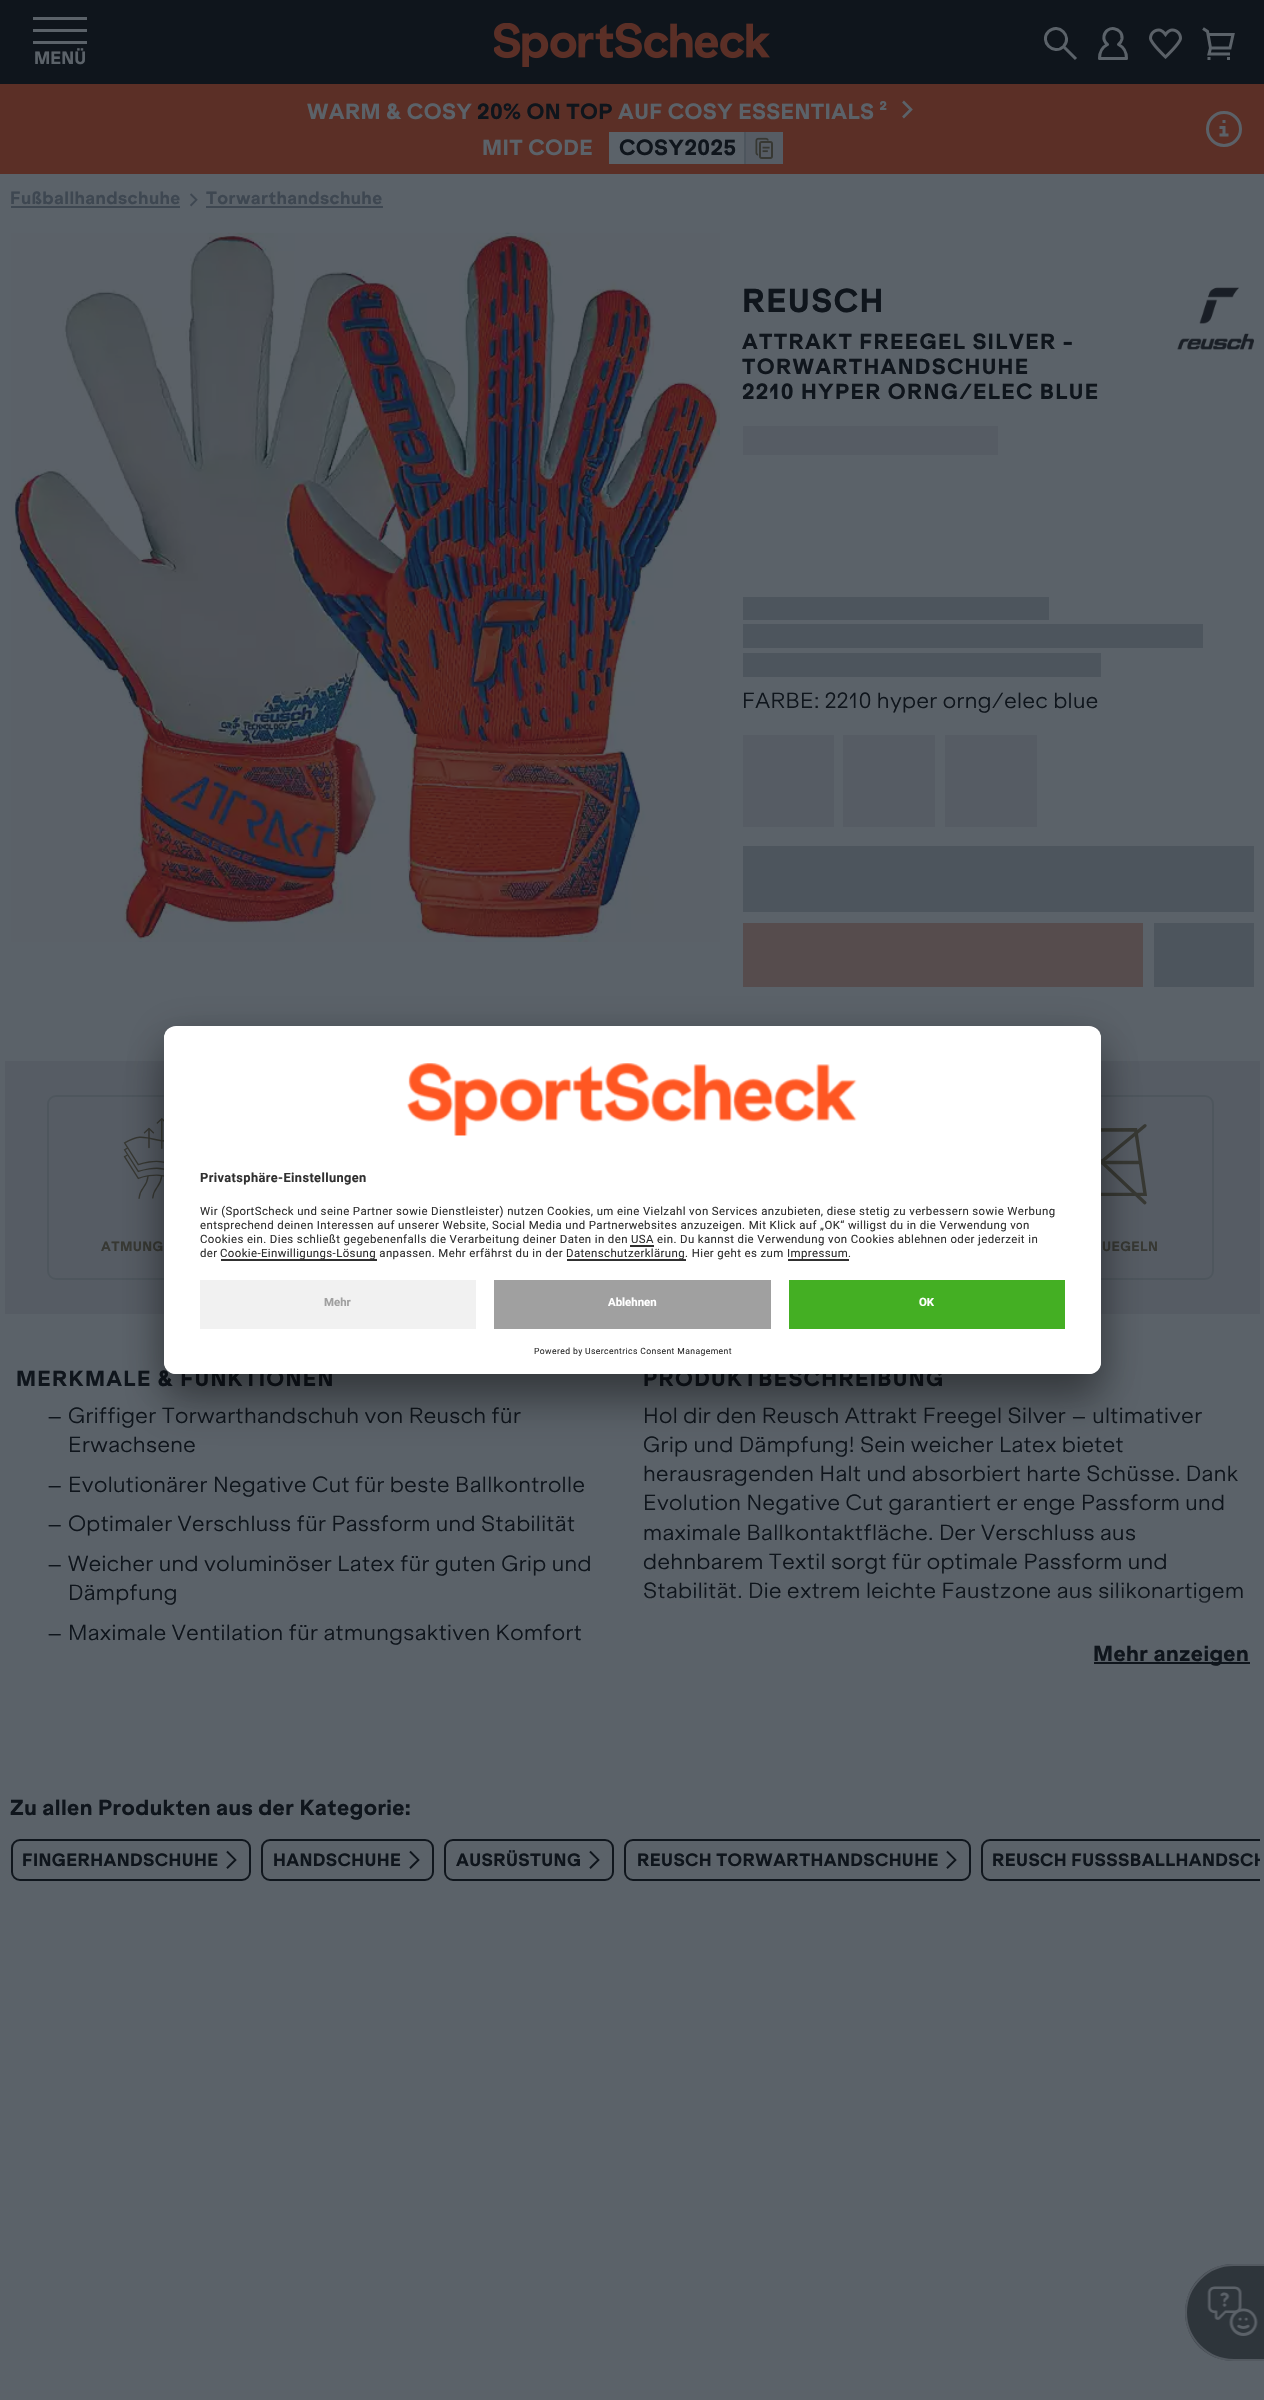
void draw(SkCanvas* canvas) {
	SkPaint paint;
	paint.setAntiAlias(true);
	auto spacedText = [&](const char* s, float x, float y, const SkFont& font, const SkPaint& ink, float letter, float word) {
		std::vector<SkGlyphID> glyphs(font.countText(s, strlen(s), SkTextEncoding::kUTF8));
		std::vector<float> xs(glyphs.size());
		font.textToGlyphs(s, strlen(s), SkTextEncoding::kUTF8, glyphs);
		font.getXPos(glyphs, xs, x);
		float extra = 0;
		for (size_t i = 0; i < glyphs.size(); i++) {
			xs[i] += extra;
			extra += letter + word * (glyphs[i] == font.unicharToGlyph(' '));
		}
		canvas->drawTextBlob(SkTextBlob::MakeFromPosHGlyphs(glyphs, xs, y, font), 0, 0, ink);
	};
	auto svgPath = [&](const char* data, bool evenOdd = false) {
		SkPath result = *SkParsePath::FromSVGString(data);
		if (evenOdd) result.setFillType(SkPathFillType::kEvenOdd);
		return result;
	};
	canvas->clear(0xff5b6269);
	paint.setColor(0xff0f151c);
	canvas->drawRect(SkRect::MakeXYWH(0, 0, 1264, 84), paint);
	paint.setColor(0xff5b6269);
	canvas->drawRect(SkRect::MakeXYWH(33, 17, 54, 3), paint);
	canvas->drawRect(SkRect::MakeXYWH(33, 29, 54, 3), paint);
	canvas->drawRect(SkRect::MakeXYWH(33, 41, 54, 3), paint);
	SkFont f1(fontMgr->matchFamilyStyle("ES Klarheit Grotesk", SkFontStyle(800, SkFontStyle::kNormal_Width, SkFontStyle::kUpright_Slant)), 17);
	f1.setSubpixel(true);
	canvas->drawString("MENÜ", 34, 64, f1, paint);
	canvas->drawImageRect(SkImages::DeferredFromEncodedData(SkData::MakeFromFileName("img1.png")), SkRect::MakeXYWH(494, 23, 276, 44), SkSamplingOptions());
	paint.setStroke(true);
	paint.setStrokeWidth(3);
	canvas->drawPath(svgPath("M1048.5 31.5C1058.5 22 1073 36.5 1063.5 46.5C1053.5 56 1039 41.5 1048.5 31.5ZM1076 59L1063.5 46.5"), paint);
	paint.setStrokeJoin(SkPaint::kRound_Join);
	canvas->drawPath(svgPath("M1099.5 58.5H1126.5C1126.5 52 1123.5 47 1118.5 44.5C1120.5 43 1121.5 41 1122 39C1123.5 27 1106 24.5 1104 36C1103.5 39 1105 42.5 1107.5 44.5C1102.5 47 1099.5 52 1099.5 58.5Z"), paint);
	canvas->drawImageRect(SkImages::DeferredFromEncodedData(SkData::MakeFromFileName("img2.png")), SkRect::MakeXYWH(1149, 28, 33, 31), SkSamplingOptions());
	paint.setStrokeJoin(SkPaint::kMiter_Join);
	canvas->drawPath(svgPath("M1203 28.5L1207.5 31.5L1210.5 48H1230L1233 34.5H1209M1210.5 48L1209 54H1230M1207.5 58.5H1210.5M1227 58.5H1230"), paint);
	paint.setStroke(false);
	paint.setColor(0xff5b2f26);
	canvas->drawRect(SkRect::MakeXYWH(0, 84, 1264, 90), paint);
	SkFont f2(fontMgr->matchFamilyStyle("ES Klarheit Grotesk", SkFontStyle(800, SkFontStyle::kNormal_Width, SkFontStyle::kUpright_Slant)), 20.9);
	f2.setSubpixel(true);
	paint.setColor(0xff5b6269);
	spacedText("WARM & COSY", 307, 119, f2, paint, 0.39, 0);
	paint.setColor(0xff0f151c);
	spacedText("20% ON TOP", 477, 119, f2, paint, 0.39, 0);
	paint.setColor(0xff5b6269);
	spacedText("AUF COSY ESSENTIALS ²", 618, 119, f2, paint, 0.39, 0);
	paint.setStroke(true);
	paint.setStrokeWidth(2.6);
	canvas->drawPath(svgPath("M903 101.5L911 109.5L903 117.5"), paint);
	paint.setStroke(false);
	spacedText("MIT CODE", 482, 155, f2, paint, 0.39, 0);
	canvas->drawRect(SkRect::MakeXYWH(609, 132, 135, 32), paint);
	paint.setColor(0xff0f151c);
	spacedText("COSY2025", 619, 155, f2, paint, 0.39, 0);
	paint.setColor(0xff565c64);
	canvas->drawRect(SkRect::MakeXYWH(746, 132, 37, 32), paint);
	paint.setColor(0xff4d555d);
	canvas->drawRect(SkRect::MakeXYWH(744, 132, 2, 32), paint);
	canvas->drawImageRect(SkImages::DeferredFromEncodedData(SkData::MakeFromFileName("img3.png")), SkRect::MakeXYWH(755, 137, 18, 22), SkSamplingOptions());
	canvas->drawImageRect(SkImages::DeferredFromEncodedData(SkData::MakeFromFileName("img4.png")), SkRect::MakeXYWH(1206, 111, 36, 36), SkSamplingOptions());
	paint.setColor(0xff3e4751);
	spacedText("Fußballhandschuhe", 10, 204, f1, paint, 0.39, 0);
	canvas->drawRect(SkRect::MakeXYWH(11, 206, 169, 2), paint);
	canvas->drawImageRect(SkImages::DeferredFromEncodedData(SkData::MakeFromFileName("img5.png")), SkRect::MakeXYWH(190, 193, 8, 14), SkSamplingOptions());
	spacedText("Torwarthandschuhe", 206, 204, f1, paint, 0.39, 0);
	canvas->drawRect(SkRect::MakeXYWH(206, 206, 177, 2), paint);
	canvas->drawImageRect(SkImages::DeferredFromEncodedData(SkData::MakeFromFileName("img6.png")), SkRect::MakeXYWH(11, 232, 709, 710), SkSamplingOptions());
	SkFont f3(fontMgr->matchFamilyStyle("ES Klarheit Grotesk", SkFontStyle(800, SkFontStyle::kNormal_Width, SkFontStyle::kUpright_Slant)), 31.5);
	f3.setSubpixel(true);
	paint.setColor(0xff0f151c);
	spacedText("REUSCH", 742, 312, f3, paint, 1.3, 0);
	spacedText("ATTRAKT FREEGEL SILVER -", 742, 349, f2, paint, 1.3, 0);
	spacedText("TORWARTHANDSCHUHE", 742, 374, f2, paint, 1.3, 0);
	spacedText("2210 HYPER ORNG/ELEC BLUE", 742, 399, f2, paint, 1.3, 0);
	canvas->drawImageRect(SkImages::DeferredFromEncodedData(SkData::MakeFromFileName("img7.png")), SkRect::MakeXYWH(1177, 287, 77, 63), SkSamplingOptions());
	paint.setColor(0xff565c64);
	canvas->drawRect(SkRect::MakeXYWH(743, 426, 255, 29), paint);
	paint.setColor(0xff4d555d);
	canvas->drawRect(SkRect::MakeXYWH(743, 597, 306, 23), paint);
	canvas->drawRect(SkRect::MakeXYWH(743, 624, 460, 24), paint);
	canvas->drawRect(SkRect::MakeXYWH(743, 653, 358, 24), paint);
	SkFont f4(fontMgr->matchFamilyStyle("ES Klarheit Grotesk", SkFontStyle(300, SkFontStyle::kNormal_Width, SkFontStyle::kUpright_Slant)), 20.9);
	f4.setSubpixel(true);
	paint.setColor(0xff0f151c);
	spacedText("FARBE: 2210 hyper orng/elec blue", 742, 708, f4, paint, 0.39, 0);
	paint.setColor(0xff565c64);
	canvas->drawRect(SkRect::MakeXYWH(743, 735, 91, 92), paint);
	canvas->drawRect(SkRect::MakeXYWH(843, 735, 92, 92), paint);
	canvas->drawRect(SkRect::MakeXYWH(945, 735, 92, 92), paint);
	paint.setColor(0xff4d555d);
	canvas->drawRect(SkRect::MakeXYWH(743, 846, 511, 66), paint);
	paint.setColor(0xff564c4d);
	canvas->drawRect(SkRect::MakeXYWH(743, 923, 400, 64), paint);
	paint.setColor(0xff4d555d);
	canvas->drawRect(SkRect::MakeXYWH(1154, 923, 100, 64), paint);
	paint.setColor(0xff565c64);
	canvas->drawRect(SkRect::MakeXYWH(5, 1061, 1255, 253), paint);
	paint.setStroke(true);
	paint.setStrokeWidth(2);
	paint.setColor(0xff4e565d);
	canvas->drawRoundRect(SkRect::MakeXYWH(48, 1096, 223, 183), 8, 8, paint);
	canvas->drawImageRect(SkImages::DeferredFromEncodedData(SkData::MakeFromFileName("img8.png")), SkRect::MakeXYWH(123, 1118, 41, 81), SkSamplingOptions());
	SkFont f5(fontMgr->matchFamilyStyle("ES Klarheit Grotesk", SkFontStyle(800, SkFontStyle::kNormal_Width, SkFontStyle::kUpright_Slant)), 13);
	f5.setSubpixel(true);
	paint.setStroke(false);
	paint.setColor(0xff373833);
	spacedText("ATMUNG", 101, 1251, f5, paint, 0.39, 0);
	paint.setStroke(true);
	paint.setColor(0xff4e565d);
	canvas->drawRoundRect(SkRect::MakeXYWH(990, 1096, 223, 183), 8, 8, paint);
	canvas->drawImageRect(SkImages::DeferredFromEncodedData(SkData::MakeFromFileName("img9.png")), SkRect::MakeXYWH(1101, 1124, 46, 81), SkSamplingOptions());
	paint.setStroke(false);
	paint.setColor(0xff373833);
	spacedText("UEGELN", 1102, 1251, f5, paint, 0.39, 0);
	paint.setColor(0xff0f151c);
	spacedText("MERKMALE & FUNKTIONEN", 16, 1386, f2, paint, 1.3, 0);
	spacedText("– Griffiger Torwarthandschuh von Reusch für", 47, 1423, f4, paint, 0.39, 0);
	spacedText("Erwachsene", 68, 1452, f4, paint, 0.39, 0);
	spacedText("– Evolutionärer Negative Cut für beste Ballkontrolle", 47, 1492, f4, paint, 0.39, 0);
	spacedText("– Optimaler Verschluss für Passform und Stabilität", 47, 1531, f4, paint, 0.39, 0);
	spacedText("– Weicher und voluminöser Latex für guten Grip und", 47, 1571, f4, paint, 0.39, 0);
	spacedText("Dämpfung", 68, 1600, f4, paint, 0.39, 0);
	spacedText("– Maximale Ventilation für atmungsaktiven Komfort", 47, 1640, f4, paint, 0.39, 0);
	spacedText("PRODUKTBESCHREIBUNG", 643, 1386, f2, paint, 1.3, 0);
	spacedText("Hol dir den Reusch Attrakt Freegel Silver – ultimativer", 643, 1423, f4, paint, 0.39, 0);
	spacedText("Grip und Dämpfung! Sein weicher Latex bietet", 643, 1452, f4, paint, 0.39, 0);
	spacedText("herausragenden Halt und absorbiert harte Schüsse. Dank", 643, 1481, f4, paint, 0.39, 0);
	spacedText("Evolution Negative Cut garantiert er enge Passform und", 643, 1510, f4, paint, 0.39, 0);
	spacedText("maximale Ballkontaktfläche. Der Verschluss aus", 643, 1540, f4, paint, 0.39, 0);
	spacedText("dehnbarem Textil sorgt für optimale Passform und", 643, 1569, f4, paint, 0.39, 0);
	spacedText("Stabilität. Die extrem leichte Faustzone aus silikonartigem", 643, 1598, f4, paint, 0.39, 0);
	{
		const SkColor colors[] = {0x005b6269, 0xff5b6269};
		const float stops[] = {0, 1};
		const SkPoint ends[] = {{946, 1593}, {946, 1635}};
		paint.setShader(SkGradientShader::MakeLinear(ends, colors, stops, 2, SkTileMode::kClamp));
		paint.setAlpha(255);
	}
	canvas->drawRect(SkRect::MakeXYWH(644, 1594, 597, 9), paint);
	paint.setShader(nullptr);
	paint.setColor(0xff0f151c);
	canvas->drawRect(SkRect::MakeXYWH(1094, 1662, 156, 2), paint);
	spacedText("Mehr anzeigen", 1093, 1661, f2, paint, 0.39, 0);
	spacedText("Zu allen Produkten aus der Kategorie:", 10, 1815, f2, paint, 0.39, 0);
	paint.setStroke(true);
	canvas->drawRoundRect(SkRect::MakeXYWH(12, 1840, 238, 40), 8, 8, paint);
	paint.setStroke(false);
	spacedText("FINGERHANDSCHUHE", 22, 1866, f1, paint, 0.39, 0);
	canvas->drawImageRect(SkImages::DeferredFromEncodedData(SkData::MakeFromFileName("img10.png")), SkRect::MakeXYWH(226, 1850, 11, 19), SkSamplingOptions());
	paint.setStroke(true);
	canvas->drawRoundRect(SkRect::MakeXYWH(262, 1840, 171, 40), 8, 8, paint);
	paint.setStroke(false);
	spacedText("HANDSCHUHE", 273, 1866, f1, paint, 0.39, 0);
	canvas->drawImageRect(SkImages::DeferredFromEncodedData(SkData::MakeFromFileName("img10.png")), SkRect::MakeXYWH(409, 1850, 11, 19), SkSamplingOptions());
	paint.setStroke(true);
	canvas->drawRoundRect(SkRect::MakeXYWH(445, 1840, 168, 40), 8, 8, paint);
	paint.setStroke(false);
	spacedText("AUSRÜSTUNG", 456, 1866, f1, paint, 0.39, 0);
	canvas->drawImageRect(SkImages::DeferredFromEncodedData(SkData::MakeFromFileName("img10.png")), SkRect::MakeXYWH(589, 1850, 11, 19), SkSamplingOptions());
	paint.setStroke(true);
	canvas->drawRoundRect(SkRect::MakeXYWH(625, 1840, 345, 40), 8, 8, paint);
	paint.setStroke(false);
	spacedText("REUSCH TORWARTHANDSCHUHE", 637, 1866, f1, paint, 0.39, 0);
	canvas->drawImageRect(SkImages::DeferredFromEncodedData(SkData::MakeFromFileName("img10.png")), SkRect::MakeXYWH(946, 1850, 11, 19), SkSamplingOptions());
	canvas->save();
	canvas->clipRect(SkRect::MakeXYWH(5, 1824, 1255, 72));
	paint.setStroke(true);
	canvas->drawRoundRect(SkRect::MakeXYWH(982, 1840, 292, 40), 8, 8, paint);
	canvas->restore();
	paint.setStroke(false);
	spacedText("REUSCH FUSS", 992, 1866, f1, paint, 0.39, 0);
	canvas->save();
	canvas->clipRect(SkRect::MakeXYWH(5, 1824, 1255, 72));
	spacedText("SBALLHANDSCH", 1118, 1866, f1, paint, 0.39, 0);
	canvas->restore();
	paint.setColor(0x4d000000);
	paint.setMaskFilter(SkMaskFilter::MakeBlur(kNormal_SkBlurStyle, 21));
	canvas->drawRoundRect(SkRect::MakeXYWH(164, 1056, 937, 348), 12, 12, paint);
	paint.setMaskFilter(nullptr);
	paint.setColor(0x38000000);
	paint.setMaskFilter(SkMaskFilter::MakeBlur(kNormal_SkBlurStyle, 19.5));
	canvas->drawRoundRect(SkRect::MakeXYWH(164, 1034, 937, 348), 12, 12, paint);
	paint.setMaskFilter(nullptr);
	paint.setColor(0xffffffff);
	canvas->drawRoundRect(SkRect::MakeXYWH(164, 1026, 937, 348), 12, 12, paint);
	canvas->save();
	canvas->clipPath(svgPath("M176 1026H1089C1095.5 1026 1101 1031.5 1101 1038V1362C1101 1368.5 1095.5 1374 1089 1374H176C169.5 1374 164 1368.5 164 1362V1038C164 1031.5 169.5 1026 176 1026Z"), true);
	canvas->clipPath(svgPath("M176 1026H1089C1095.5 1026 1101 1031.5 1101 1038V1268H164V1038C164 1031.5 169.5 1026 176 1026Z"), true);
	canvas->drawRect(SkRect::MakeXYWH(164, 1028, 937, 240), paint);
	canvas->restore();
	canvas->drawImageRect(SkImages::DeferredFromEncodedData(SkData::MakeFromFileName("img11.png")), SkRect::MakeXYWH(407, 1063, 450, 73), SkSamplingOptions());
	SkFont f6(fontMgr->matchFamilyStyle("Roboto", SkFontStyle::Bold()), 12.8);
	f6.setSubpixel(true);
	paint.setColor(0xff303030);
	spacedText("Privatsphäre-Einstellungen", 200, 1182, f6, paint, 0.39, 0);
	SkFont f7(fontMgr->matchFamilyStyle("Roboto", SkFontStyle::Normal()), 11.42);
	f7.setSubpixel(true);
	spacedText("Wir (SportScheck und seine Partner sowie Dienstleister) nutzen Cookies, um eine Vielzahl von Services anzubieten, diese stetig zu verbessern sowie Werbung", 200, 1215, f7, paint, 0.39, 0);
	spacedText("entsprechend deinen Interessen auf unserer Website, Social Media und Partnerwebsites anzuzeigen. Mit Klick auf „OK“ willigst du in die Verwendung von", 200, 1229, f7, paint, 0.39, 0);
	spacedText("Cookies ein. Dies schließt gegebenenfalls die Verarbeitung deiner Daten in den USA ein. Du kannst die Verwendung von Cookies ablehnen oder jederzeit in", 200, 1243, f7, paint, 0.39, 0);
	canvas->drawRect(SkRect::MakeXYWH(630, 1245, 24, 2), paint);
	spacedText("der", 200, 1257, f7, paint, 0.39, 0);
	canvas->drawRect(SkRect::MakeXYWH(221, 1259, 156, 2), paint);
	spacedText("Cookie-Einwilligungs-Lösung anpassen. Mehr erfährst du in der", 220, 1257, f7, paint, 0.39, 0);
	canvas->drawRect(SkRect::MakeXYWH(567, 1259, 119, 2), paint);
	spacedText("Datenschutzerklärung. Hier geht es zum", 566, 1257, f7, paint, 0.39, 0);
	canvas->drawRect(SkRect::MakeXYWH(788, 1259, 61, 2), paint);
	spacedText("Impressum.", 787, 1257, f7, paint, 0.39, 0);
	paint.setColor(0xffffffff);
	canvas->drawPath(svgPath("M164 1268H1101V1362C1101 1368.5 1095.5 1374 1089 1374H176C169.5 1374 164 1368.5 164 1362Z"), paint);
	paint.setColor(0xfff1f1f1);
	canvas->drawRect(SkRect::MakeXYWH(200, 1280, 276, 49), paint);
	SkFont f8(fontMgr->matchFamilyStyle("Roboto", SkFontStyle::Bold()), 11.42);
	f8.setSubpixel(true);
	paint.setColor(0xffa0a0a0);
	canvas->drawString("Mehr", 324, 1306, f8, paint);
	canvas->drawRect(SkRect::MakeXYWH(494, 1280, 277, 49), paint);
	paint.setColor(0xffffffff);
	canvas->drawString("Ablehnen", 608, 1306, f8, paint);
	paint.setColor(0xff44af23);
	canvas->drawRect(SkRect::MakeXYWH(789, 1280, 276, 49), paint);
	paint.setColor(0xffffffff);
	canvas->drawString("OK", 919, 1306, f8, paint);
	SkFont f9(fontMgr->matchFamilyStyle("Roboto", SkFontStyle::Normal()), 8.6);
	f9.setSubpixel(true);
	paint.setColor(0xff303030);
	spacedText("Powered by", 534, 1354, f9, paint, 0.39, 0);
	spacedText("Usercentrics Consent Management", 585, 1354, f9, paint, 0.39, 0);
	paint.setColor(0x990f151c);
	canvas->drawPath(svgPath("M1233.5 2264H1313V2361H1233.5C1206.5 2361 1185 2339.5 1185 2312.5C1185 2285.5 1206.5 2264 1233.5 2264Z"), paint);
	paint.setStroke(true);
	paint.setColor(0xcc5b6269);
	canvas->drawPath(svgPath("M1233.5 2265H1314V2360H1233.5C1207.5 2360 1186 2338.5 1186 2312.5C1186 2286.5 1207.5 2265 1233.5 2265Z"), paint);
	canvas->drawImageRect(SkImages::DeferredFromEncodedData(SkData::MakeFromFileName("img12.png")), SkRect::MakeXYWH(1207, 2286, 51, 50), SkSamplingOptions());
}
